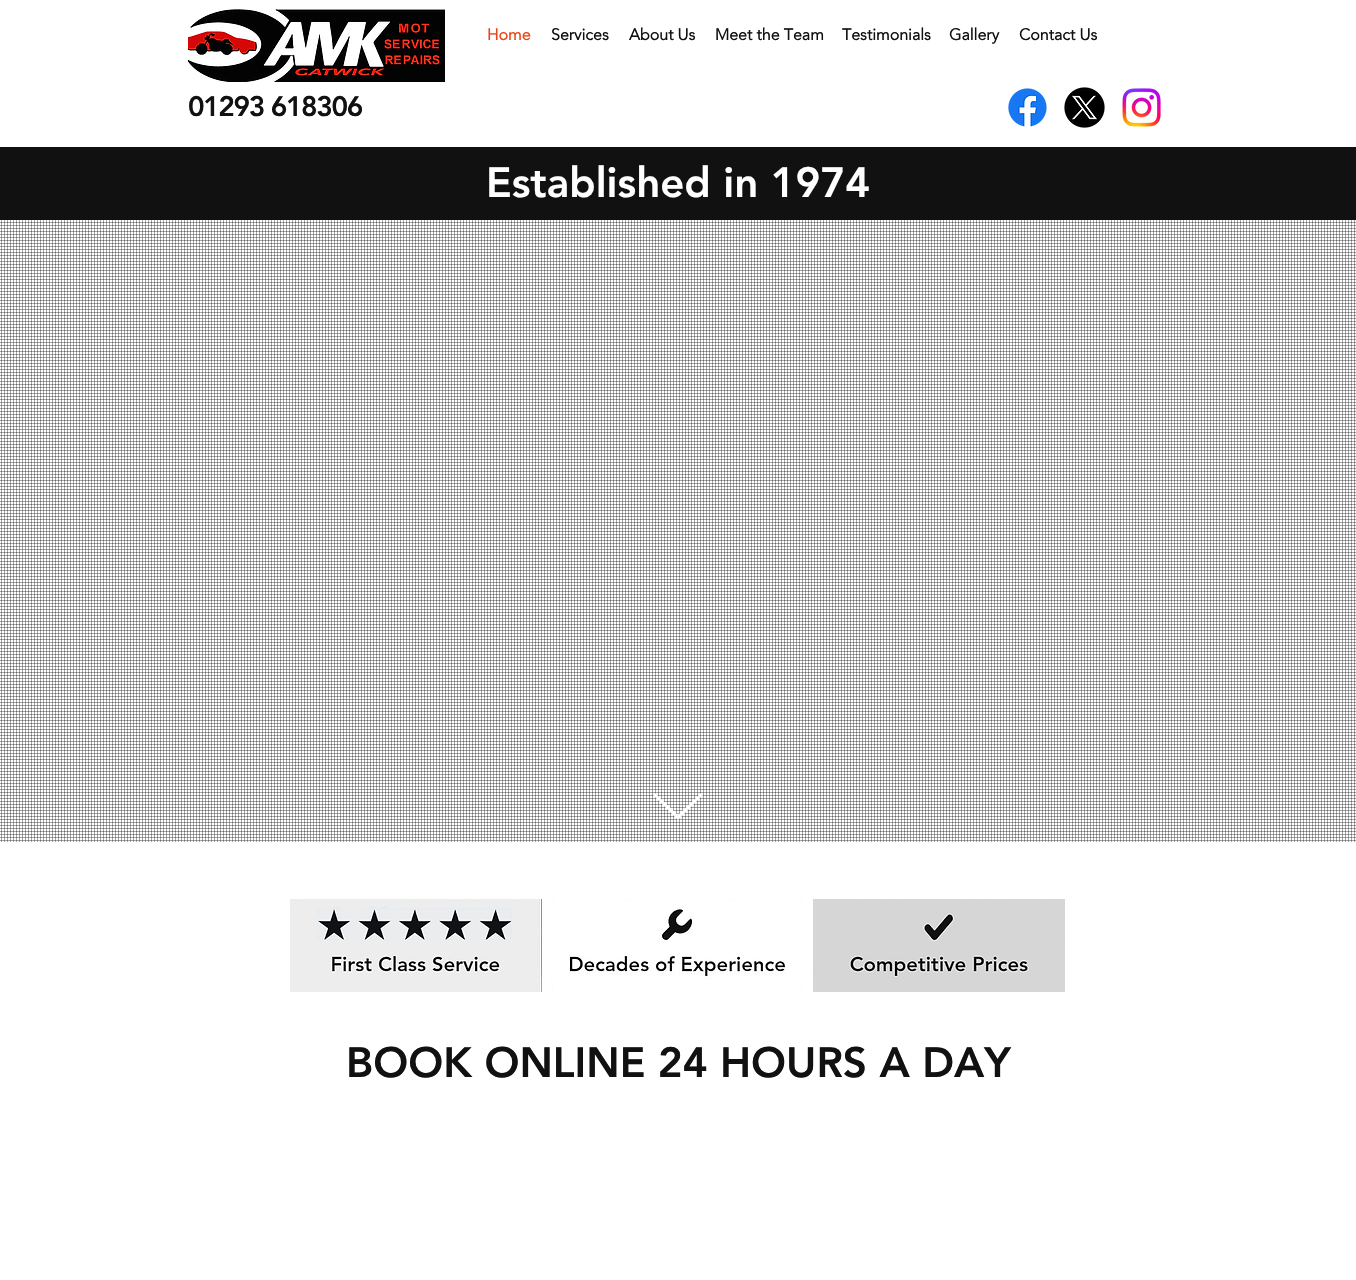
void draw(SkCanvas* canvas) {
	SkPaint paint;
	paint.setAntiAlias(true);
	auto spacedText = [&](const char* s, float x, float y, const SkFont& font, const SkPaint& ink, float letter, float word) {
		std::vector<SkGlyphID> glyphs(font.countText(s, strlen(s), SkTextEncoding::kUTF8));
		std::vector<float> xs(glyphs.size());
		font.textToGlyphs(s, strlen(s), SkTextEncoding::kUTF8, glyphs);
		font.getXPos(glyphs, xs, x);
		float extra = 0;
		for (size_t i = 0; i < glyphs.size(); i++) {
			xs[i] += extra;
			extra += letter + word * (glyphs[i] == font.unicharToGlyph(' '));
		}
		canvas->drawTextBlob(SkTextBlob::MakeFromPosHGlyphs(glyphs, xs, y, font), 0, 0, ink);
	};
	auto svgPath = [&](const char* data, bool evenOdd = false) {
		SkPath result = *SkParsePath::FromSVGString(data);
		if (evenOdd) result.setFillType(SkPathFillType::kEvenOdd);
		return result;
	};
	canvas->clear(0xffffffff);
	canvas->drawImageRect(SkImages::DeferredFromEncodedData(SkData::MakeFromFileName("img1.png")), SkRect::MakeXYWH(188, 9, 257, 73), SkSamplingOptions());
	SkFont f1(fontMgr->matchFamilyStyle("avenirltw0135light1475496", SkFontStyle::Bold()), 16);
	f1.setSubpixel(true);
	paint.setColor(0xffe94615);
	canvas->drawString("Home", 487, 40, f1, paint);
	paint.setColor(0xff111111);
	canvas->drawString("Services", 551, 40, f1, paint);
	canvas->drawString("About Us", 629, 40, f1, paint);
	canvas->drawString("Meet the Team", 715, 40, f1, paint);
	canvas->drawString("Testimonials", 842, 40, f1, paint);
	canvas->drawString("Gallery", 949, 40, f1, paint);
	canvas->drawString("Contact Us", 1019, 40, f1, paint);
	SkFont f2(fontMgr->matchFamilyStyle("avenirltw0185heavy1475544", SkFontStyle(900, SkFontStyle::kNormal_Width, SkFontStyle::kUpright_Slant)), 28);
	f2.setSubpixel(true);
	spacedText("01293 618306", 188, 116, f2, paint, -1.4, 0);
	canvas->drawImageRect(SkImages::DeferredFromEncodedData(SkData::MakeFromFileName("img2.png")), SkRect::MakeXYWH(1008, 88, 39, 39), SkSamplingOptions());
	canvas->drawImageRect(SkImages::DeferredFromEncodedData(SkData::MakeFromFileName("img3.png")), SkRect::MakeXYWH(1064, 87, 41, 41), SkSamplingOptions());
	canvas->drawImageRect(SkImages::DeferredFromEncodedData(SkData::MakeFromFileName("img4.png")), SkRect::MakeXYWH(1122, 88, 39, 39), SkSamplingOptions());
	canvas->drawRect(SkRect::MakeXYWH(0, 147, 1356, 73), paint);
	SkFont f3(fontMgr->matchFamilyStyle("avenirltw0185heavy1475544", SkFontStyle(900, SkFontStyle::kNormal_Width, SkFontStyle::kUpright_Slant)), 42);
	f3.setSubpixel(true);
	paint.setColor(0xffffffff);
	canvas->drawString("Established in 1974", 486, 197, f3, paint);
	canvas->drawImageRect(SkImages::DeferredFromEncodedData(SkData::MakeFromFileName("img5.png")), SkRect::MakeXYWH(0, 220, 1356, 622), SkSamplingOptions());
	canvas->drawPath(svgPath("M703 795L701 793L678 815L655 793L653 795L678 820Z"), paint);
	canvas->drawImageRect(SkImages::DeferredFromEncodedData(SkData::MakeFromFileName("img6.png")), SkRect::MakeXYWH(290, 899, 252, 93), SkSamplingOptions());
	canvas->drawImageRect(SkImages::DeferredFromEncodedData(SkData::MakeFromFileName("img7.png")), SkRect::MakeXYWH(551, 899, 252, 93), SkSamplingOptions());
	canvas->drawImageRect(SkImages::DeferredFromEncodedData(SkData::MakeFromFileName("img8.png")), SkRect::MakeXYWH(813, 899, 252, 93), SkSamplingOptions());
	paint.setColor(0xff111111);
	canvas->drawString("BOOK ONLINE 24 HOURS A DAY", 346, 1077, f3, paint);
}
